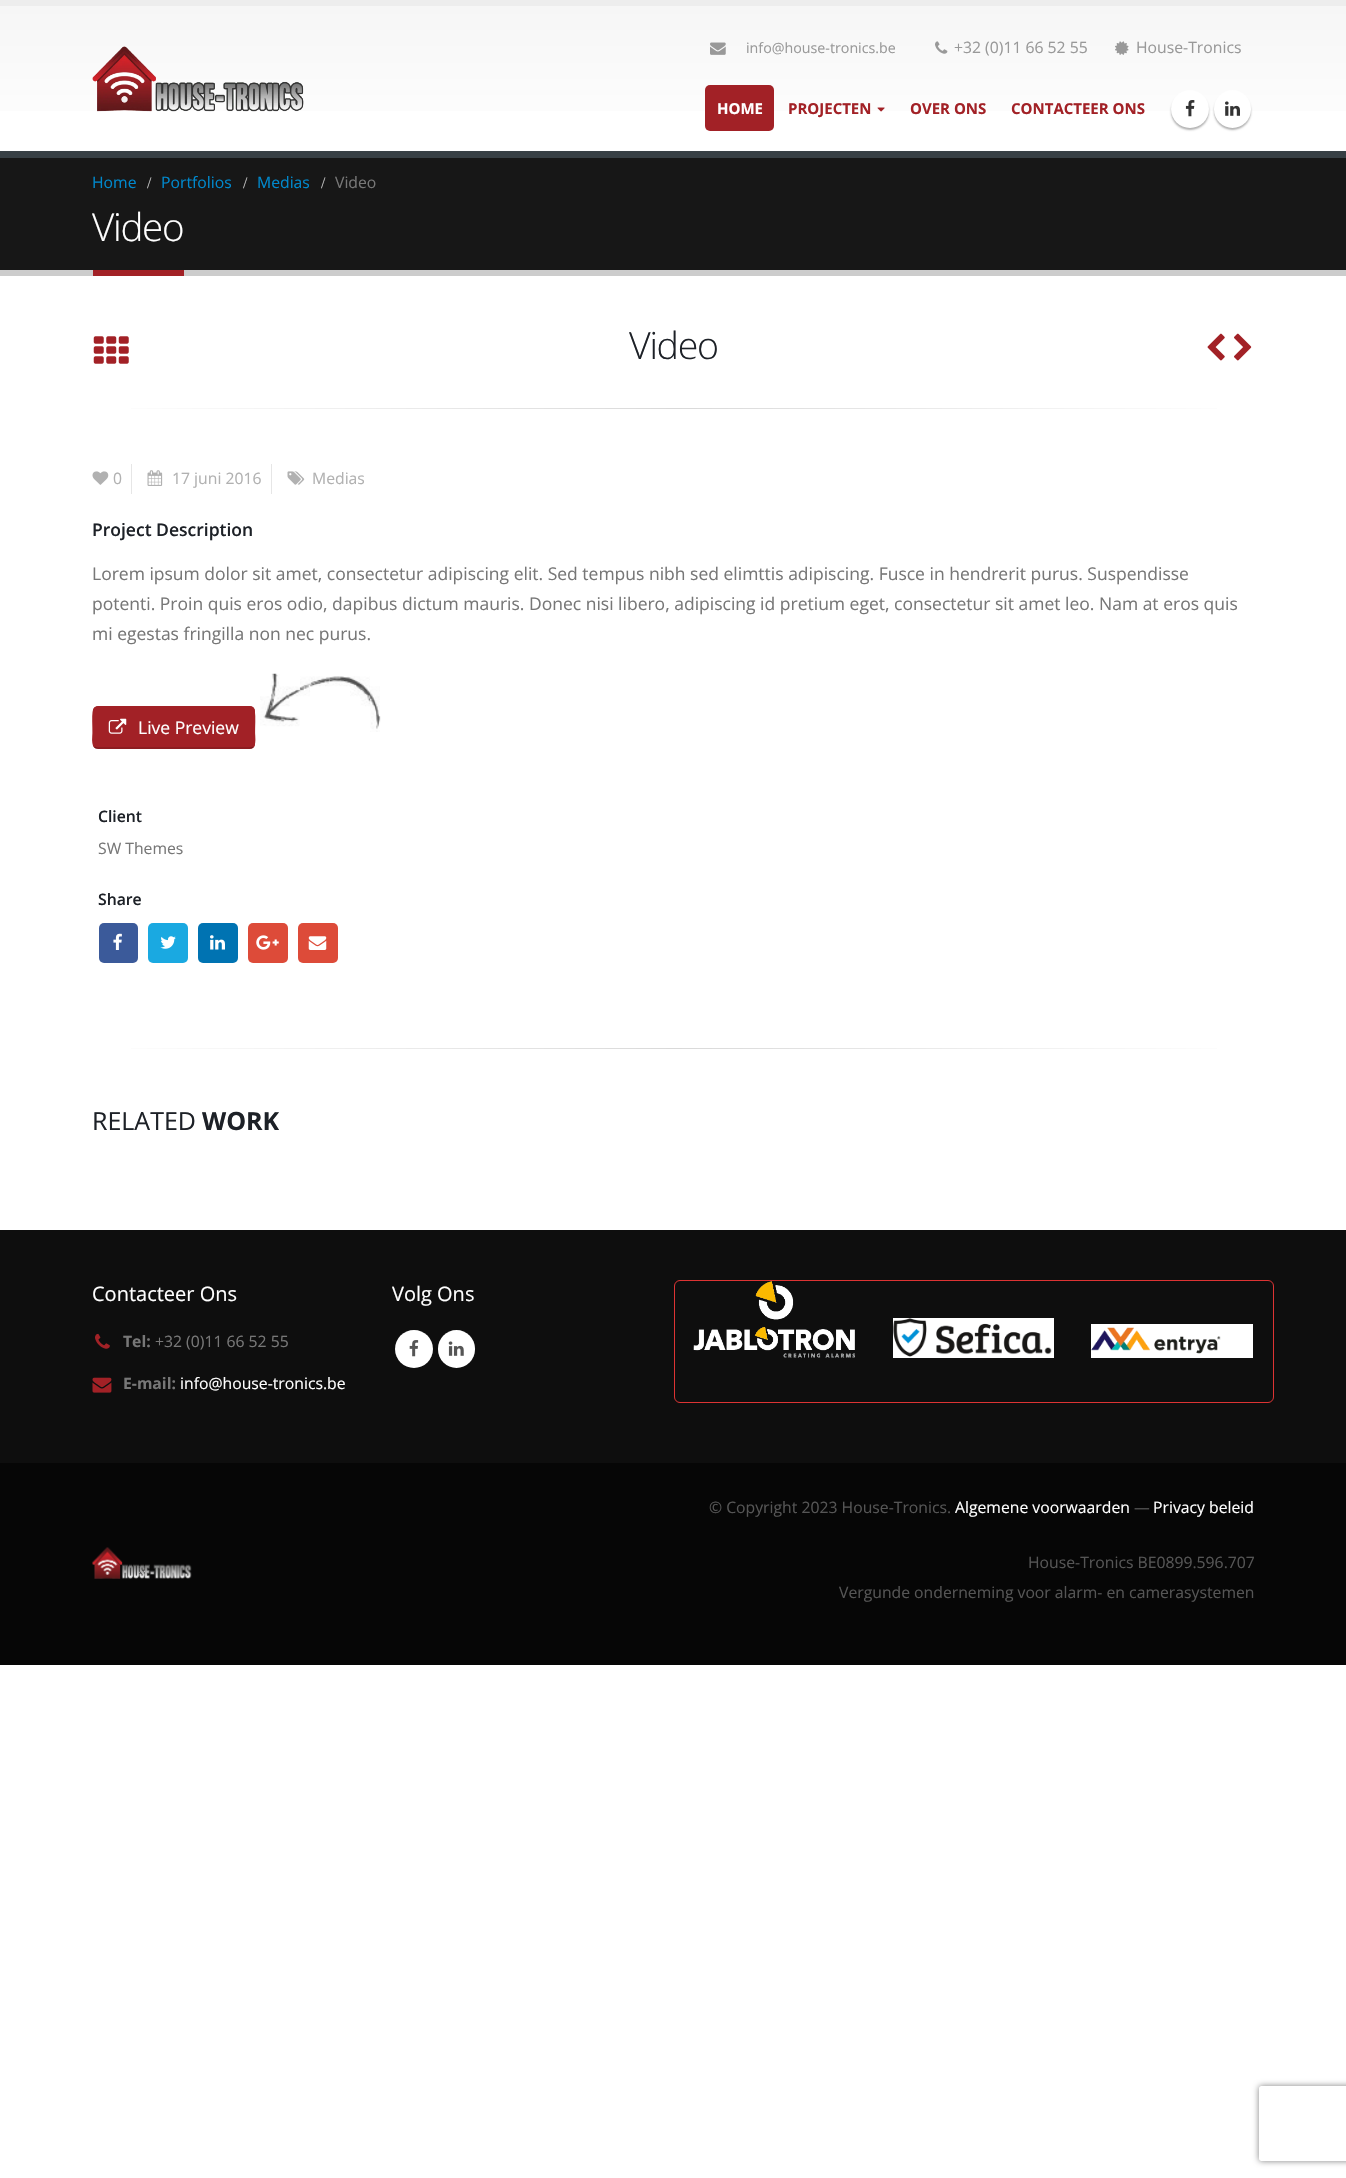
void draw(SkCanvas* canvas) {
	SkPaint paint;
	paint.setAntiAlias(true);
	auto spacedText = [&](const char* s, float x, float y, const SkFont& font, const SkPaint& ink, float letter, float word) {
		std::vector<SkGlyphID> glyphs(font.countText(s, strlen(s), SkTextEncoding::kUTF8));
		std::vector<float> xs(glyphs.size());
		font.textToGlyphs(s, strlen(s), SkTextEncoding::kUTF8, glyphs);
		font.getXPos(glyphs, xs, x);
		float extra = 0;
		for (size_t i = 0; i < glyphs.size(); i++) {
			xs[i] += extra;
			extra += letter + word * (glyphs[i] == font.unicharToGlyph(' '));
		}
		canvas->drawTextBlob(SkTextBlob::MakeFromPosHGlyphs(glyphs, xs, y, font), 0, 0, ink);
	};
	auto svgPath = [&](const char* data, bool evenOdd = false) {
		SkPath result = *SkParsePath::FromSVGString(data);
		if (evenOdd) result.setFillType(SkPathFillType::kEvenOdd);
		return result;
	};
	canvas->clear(0xffffffff);
	paint.setColor(0xffededed);
	canvas->drawRect(SkRect::MakeXYWH(0, 0, 1346, 6), paint);
	{
		const SkColor colors[] = {0xfff6f6f6, 0xffffffff};
		const float stops[] = {0, 1};
		const SkPoint ends[] = {{673, 6.2}, {673, 151}};
		paint.setShader(SkGradientShader::MakeLinear(ends, colors, stops, 2, SkTileMode::kClamp));
		paint.setAlpha(255);
	}
	canvas->drawRect(SkRect::MakeXYWH(0, 6, 1346, 105), paint);
	canvas->drawImageRect(SkImages::DeferredFromEncodedData(SkData::MakeFromFileName("img1.png")), SkRect::MakeXYWH(92, 46, 212, 66), SkSamplingOptions());
	canvas->drawImageRect(SkImages::DeferredFromEncodedData(SkData::MakeFromFileName("img2.png")), SkRect::MakeXYWH(710, 42, 16, 13), SkSamplingOptions());
	SkFont f1(fontMgr->matchFamilyStyle("Open Sans", SkFontStyle::Normal()), 14.25);
	f1.setSubpixel(true);
	paint.setShader(nullptr);
	paint.setColor(0xff999999);
	canvas->drawString("info@house-tronics.be", 746, 53, f1, paint);
	canvas->drawImageRect(SkImages::DeferredFromEncodedData(SkData::MakeFromFileName("img3.png")), SkRect::MakeXYWH(935, 41, 13, 13), SkSamplingOptions());
	SkFont f2(fontMgr->matchFamilyStyle("Open Sans", SkFontStyle::Normal()), 15.75);
	f2.setSubpixel(true);
	canvas->drawString("+32 (0)11 66 52 55", 954, 53, f2, paint);
	canvas->drawImageRect(SkImages::DeferredFromEncodedData(SkData::MakeFromFileName("img4.png")), SkRect::MakeXYWH(1115, 41, 14, 14), SkSamplingOptions());
	canvas->drawString("House-Tronics", 1136, 53, f2, paint);
	paint.setColor(0xffa22126);
	canvas->drawRoundRect(SkRect::MakeXYWH(705, 85, 69, 46), 5, 5, paint);
	SkFont f3(fontMgr->matchFamilyStyle("Open Sans", SkFontStyle::Bold()), 15);
	f3.setSubpixel(true);
	paint.setColor(0xffffffff);
	canvas->drawString("HOME", 717, 114, f3, paint);
	paint.setColor(0xffa22126);
	canvas->drawString("PROJECTEN", 788, 114, f3, paint);
	canvas->drawImageRect(SkImages::DeferredFromEncodedData(SkData::MakeFromFileName("img5.png")), SkRect::MakeXYWH(877, 107, 8, 5), SkSamplingOptions());
	canvas->drawString("OVER ONS", 910, 114, f3, paint);
	canvas->drawString("CONTACTEER ONS", 1011, 114, f3, paint);
	paint.setColor(0x4d000000);
	paint.setMaskFilter(SkMaskFilter::MakeBlur(kNormal_SkBlurStyle, 1));
	canvas->drawRoundRect(SkRect::MakeXYWH(1171, 93, 38, 37), 18.5, 18.5, paint);
	paint.setMaskFilter(nullptr);
	paint.setColor(0xffffffff);
	canvas->drawCircle(1190, 109, 19, paint);
	canvas->drawImageRect(SkImages::DeferredFromEncodedData(SkData::MakeFromFileName("img6.png")), SkRect::MakeXYWH(1185, 100, 10, 17), SkSamplingOptions());
	paint.setColor(0x4d000000);
	paint.setMaskFilter(SkMaskFilter::MakeBlur(kNormal_SkBlurStyle, 1));
	canvas->drawRoundRect(SkRect::MakeXYWH(1214, 93, 37, 37), 18.5, 18.5, paint);
	paint.setMaskFilter(nullptr);
	paint.setColor(0xffffffff);
	canvas->drawRoundRect(SkRect::MakeXYWH(1214, 90, 37, 38), 18.5, 18.5, paint);
	canvas->drawImageRect(SkImages::DeferredFromEncodedData(SkData::MakeFromFileName("img7.png")), SkRect::MakeXYWH(1225, 101, 15, 15), SkSamplingOptions());
	paint.setColor(0xff171717);
	canvas->drawRect(SkRect::MakeXYWH(0, 158, 1346, 112), paint);
	paint.setColor(0xff384045);
	canvas->drawRect(SkRect::MakeXYWH(0, 151, 1346, 7), paint);
	paint.setColor(0xffcccccc);
	canvas->drawRect(SkRect::MakeXYWH(0, 270, 1346, 6), paint);
	paint.setColor(0xff0088cc);
	canvas->drawString("Home", 92, 188, f2, paint);
	SkFont f4(fontMgr->matchFamilyStyle("Liberation Serif", SkFontStyle::Normal()), 15.75);
	f4.setSubpixel(true);
	paint.setColor(0xffc3c3c3);
	canvas->drawString("/", 147, 188, f4, paint);
	paint.setColor(0xff0088cc);
	canvas->drawString("Portfolios", 161, 188, f2, paint);
	paint.setColor(0xffc3c3c3);
	canvas->drawString("/", 243, 188, f4, paint);
	paint.setColor(0xff0088cc);
	canvas->drawString("Medias", 257, 188, f2, paint);
	paint.setColor(0xffc3c3c3);
	canvas->drawString("/", 321, 188, f4, paint);
	paint.setColor(0xff777777);
	canvas->drawString("Video", 335, 188, f2, paint);
	paint.setColor(0xffa22126);
	canvas->drawRect(SkRect::MakeXYWH(93, 270, 91, 6), paint);
	SkFont f5(fontMgr->matchFamilyStyle("Open Sans", SkFontStyle(300, SkFontStyle::kNormal_Width, SkFontStyle::kUpright_Slant)), 38.5);
	f5.setSubpixel(true);
	paint.setColor(0xffffffff);
	spacedText("Video", 92, 241, f5, paint, -1.25, 0);
	canvas->drawImageRect(SkImages::DeferredFromEncodedData(SkData::MakeFromFileName("img8.png")), SkRect::MakeXYWH(93, 336, 36, 28), SkSamplingOptions());
	SkFont f6(fontMgr->matchFamilyStyle("Open Sans", SkFontStyle(300, SkFontStyle::kNormal_Width, SkFontStyle::kUpright_Slant)), 37.5);
	f6.setSubpixel(true);
	paint.setColor(0xff1d2127);
	spacedText("Video", 629, 359, f6, paint, -1.25, 0);
	canvas->drawImageRect(SkImages::DeferredFromEncodedData(SkData::MakeFromFileName("img9.png")), SkRect::MakeXYWH(1207, 333, 18, 28), SkSamplingOptions());
	canvas->drawImageRect(SkImages::DeferredFromEncodedData(SkData::MakeFromFileName("img10.png")), SkRect::MakeXYWH(1234, 333, 18, 28), SkSamplingOptions());
	{
		const SkColor colors[] = {0xffffffff, 0xffd9d9d9, 0xffffffff};
		const float stops[] = {0, 0.5, 1};
		const SkPoint ends[] = {{93, 408}, {1255, 408}};
		paint.setShader(SkGradientShader::MakeLinear(ends, colors, stops, 3, SkTileMode::kClamp));
		paint.setAlpha(255);
	}
	canvas->drawRect(SkRect::MakeXYWH(131, 408, 1086, 1), paint);
	paint.setShader(nullptr);
	paint.setColor(0xffe6e6e6);
	canvas->drawRect(SkRect::MakeXYWH(131, 464, 1, 30), paint);
	canvas->drawImageRect(SkImages::DeferredFromEncodedData(SkData::MakeFromFileName("img11.png")), SkRect::MakeXYWH(92, 471, 17, 14), SkSamplingOptions());
	paint.setColor(0xffb1b1b1);
	canvas->drawString("0", 113, 484, f2, paint);
	paint.setColor(0xffe6e6e6);
	canvas->drawRect(SkRect::MakeXYWH(271, 464, 1, 30), paint);
	canvas->drawImageRect(SkImages::DeferredFromEncodedData(SkData::MakeFromFileName("img12.png")), SkRect::MakeXYWH(147, 470, 16, 16), SkSamplingOptions());
	paint.setColor(0xffb1b1b1);
	canvas->drawString("17 juni 2016", 172, 484, f2, paint);
	canvas->drawImageRect(SkImages::DeferredFromEncodedData(SkData::MakeFromFileName("img13.png")), SkRect::MakeXYWH(287, 471, 18, 14), SkSamplingOptions());
	canvas->drawString("Medias", 312, 484, f2, paint);
	SkFont f7(fontMgr->matchFamilyStyle("Open Sans", SkFontStyle(600, SkFontStyle::kNormal_Width, SkFontStyle::kUpright_Slant)), 17.5);
	f7.setSubpixel(true);
	paint.setColor(0xff1d2127);
	canvas->drawString("Project Description", 92, 536, f7, paint);
	SkFont f8(fontMgr->matchFamilyStyle("Open Sans", SkFontStyle::Normal()), 17.5);
	f8.setSubpixel(true);
	paint.setColor(0xff777777);
	canvas->drawString("Lorem ipsum dolor sit amet, consectetur adipiscing elit. Sed tempus nibh sed elimttis adipiscing. Fusce in hendrerit purus. Suspendisse", 92, 580, f8, paint);
	canvas->drawString("potenti. Proin quis eros odio, dapibus dictum mauris. Donec nisi libero, adipiscing id pretium eget, consectetur sit amet leo. Nam at eros quis", 92, 610, f8, paint);
	canvas->drawString("mi egestas fringilla non nec purus.", 92, 640, f8, paint);
	paint.setColor(0xffa22126);
	canvas->drawRoundRect(SkRect::MakeXYWH(93, 706, 162, 43), 5, 5, paint);
	paint.setStroke(true);
	paint.setStrokeWidth(1.2);
	paint.setColor(0xff78181c);
	canvas->drawPath(svgPath("M253 747C252.5 747.5 251 748 250 748H97.5C96.5 748 95 747.5 94.5 747"), paint);
	paint.setColor(0xffa22126);
	canvas->drawPath(svgPath("M94.5 747C91.5 744 93 736 93 733C93 700.5 87.5 707 123 707H224.5C260 707 254.5 700.5 254.5 733C254.5 736 256 744 253 747"), paint);
	canvas->drawImageRect(SkImages::DeferredFromEncodedData(SkData::MakeFromFileName("img14.png")), SkRect::MakeXYWH(108, 718, 19, 16), SkSamplingOptions());
	paint.setStroke(false);
	paint.setColor(0xffffffff);
	canvas->drawString("Live Preview", 138, 734, f8, paint);
	canvas->drawImageRect(SkImages::DeferredFromEncodedData(SkData::MakeFromFileName("img15.png")), SkRect::MakeXYWH(260, 673, 121, 59), SkSamplingOptions());
	SkFont f9(fontMgr->matchFamilyStyle("Open Sans", SkFontStyle(600, SkFontStyle::kNormal_Width, SkFontStyle::kUpright_Slant)), 15.75);
	f9.setSubpixel(true);
	paint.setColor(0xff1d2127);
	canvas->drawString("Client", 98, 822, f9, paint);
	paint.setColor(0xff777777);
	canvas->drawString("SW Themes", 98, 854, f2, paint);
	paint.setColor(0xff1d2127);
	canvas->drawString("Share", 98, 905, f9, paint);
	paint.setColor(0xff3b5a9a);
	canvas->drawRoundRect(SkRect::MakeXYWH(99, 923, 39, 40), 5, 5, paint);
	canvas->drawImageRect(SkImages::DeferredFromEncodedData(SkData::MakeFromFileName("img16.png")), SkRect::MakeXYWH(113, 933, 9, 17), SkSamplingOptions());
	paint.setColor(0xff1aa9e1);
	canvas->drawRoundRect(SkRect::MakeXYWH(148, 923, 40, 40), 5, 5, paint);
	canvas->drawImageRect(SkImages::DeferredFromEncodedData(SkData::MakeFromFileName("img17.png")), SkRect::MakeXYWH(160, 936, 16, 13), SkSamplingOptions());
	paint.setColor(0xff0073b2);
	canvas->drawRoundRect(SkRect::MakeXYWH(198, 923, 40, 40), 5, 5, paint);
	canvas->drawImageRect(SkImages::DeferredFromEncodedData(SkData::MakeFromFileName("img18.png")), SkRect::MakeXYWH(210, 935, 15, 15), SkSamplingOptions());
	paint.setColor(0xffdd4b39);
	canvas->drawRoundRect(SkRect::MakeXYWH(248, 923, 40, 40), 5, 5, paint);
	canvas->drawImageRect(SkImages::DeferredFromEncodedData(SkData::MakeFromFileName("img19.png")), SkRect::MakeXYWH(256, 935, 23, 15), SkSamplingOptions());
	canvas->drawRoundRect(SkRect::MakeXYWH(298, 923, 40, 40), 5, 5, paint);
	canvas->drawImageRect(SkImages::DeferredFromEncodedData(SkData::MakeFromFileName("img20.png")), SkRect::MakeXYWH(308, 936, 19, 14), SkSamplingOptions());
	{
		const SkColor colors[] = {0xffffffff, 0xffd9d9d9, 0xffffffff};
		const float stops[] = {0, 0.5, 1};
		const SkPoint ends[] = {{93, 1048}, {1255, 1048}};
		paint.setShader(SkGradientShader::MakeLinear(ends, colors, stops, 3, SkTileMode::kClamp));
		paint.setAlpha(255);
	}
	canvas->drawRect(SkRect::MakeXYWH(131, 1048, 1086, 1), paint);
	SkFont f10(fontMgr->matchFamilyStyle("Open Sans", SkFontStyle::Normal()), 25);
	f10.setSubpixel(true);
	paint.setShader(nullptr);
	paint.setColor(0xff1d2127);
	canvas->drawString("RELATED", 92, 1130, f10, paint);
	SkFont f11(fontMgr->matchFamilyStyle("Open Sans", SkFontStyle::Bold()), 25);
	f11.setSubpixel(true);
	canvas->drawString("WORK", 202, 1130, f11, paint);
	paint.setColor(0xff0e0e0e);
	canvas->drawRect(SkRect::MakeXYWH(0, 1230, 1346, 233), paint);
	SkFont f12(fontMgr->matchFamilyStyle("Open Sans", SkFontStyle::Normal()), 20);
	f12.setSubpixel(true);
	paint.setColor(0xffffffff);
	canvas->drawString("Contacteer Ons", 92, 1301, f12, paint);
	canvas->drawImageRect(SkImages::DeferredFromEncodedData(SkData::MakeFromFileName("img21.png")), SkRect::MakeXYWH(95, 1333, 15, 16), SkSamplingOptions());
	SkFont f13(fontMgr->matchFamilyStyle("Open Sans", SkFontStyle::Bold()), 15.75);
	f13.setSubpixel(true);
	paint.setColor(0xff777777);
	canvas->drawString("Tel:", 123, 1347, f13, paint);
	canvas->drawString("+32 (0)11 66 52 55", 155, 1347, f2, paint);
	canvas->drawImageRect(SkImages::DeferredFromEncodedData(SkData::MakeFromFileName("img22.png")), SkRect::MakeXYWH(92, 1377, 20, 16), SkSamplingOptions());
	canvas->drawString("E-mail:", 123, 1389, f13, paint);
	paint.setColor(0xffffffff);
	canvas->drawString("info@house-tronics.be", 180, 1389, f2, paint);
	canvas->drawString("Volg Ons", 392, 1301, f12, paint);
	canvas->drawCircle(414, 1349, 19, paint);
	canvas->drawImageRect(SkImages::DeferredFromEncodedData(SkData::MakeFromFileName("img23.png")), SkRect::MakeXYWH(409, 1340, 10, 17), SkSamplingOptions());
	canvas->drawRoundRect(SkRect::MakeXYWH(438, 1330, 37, 38), 18.5, 18.5, paint);
	canvas->drawImageRect(SkImages::DeferredFromEncodedData(SkData::MakeFromFileName("img24.png")), SkRect::MakeXYWH(448, 1341, 16, 15), SkSamplingOptions());
	paint.setStroke(true);
	paint.setStrokeWidth(1);
	paint.setColor(0xffdd3333);
	canvas->drawRoundRect(SkRect::MakeXYWH(674.5, 1280.5, 599, 122), 5.5, 5.5, paint);
	canvas->drawImageRect(SkImages::DeferredFromEncodedData(SkData::MakeFromFileName("img25.png")), SkRect::MakeXYWH(693, 1281, 162, 77), SkSamplingOptions());
	paint.setStroke(false);
	paint.setColor(0xffffffff);
	canvas->drawRect(SkRect::MakeXYWH(893, 1318, 161, 40), paint);
	canvas->drawImageRect(SkImages::DeferredFromEncodedData(SkData::MakeFromFileName("img26.png")), SkRect::MakeXYWH(893, 1318, 159, 39), SkSamplingOptions());
	canvas->drawRect(SkRect::MakeXYWH(1091, 1324, 162, 34), paint);
	canvas->drawImageRect(SkImages::DeferredFromEncodedData(SkData::MakeFromFileName("img27.png")), SkRect::MakeXYWH(1091, 1327, 130, 27), SkSamplingOptions());
	paint.setColor(0xff060606);
	canvas->drawRect(SkRect::MakeXYWH(0, 1463, 1346, 202), paint);
	canvas->drawImageRect(SkImages::DeferredFromEncodedData(SkData::MakeFromFileName("img28.png")), SkRect::MakeXYWH(92, 1547, 100, 32), SkSamplingOptions());
	paint.setColor(0xff555555);
	canvas->drawString("© Copyright 2023 House-Tronics.", 709, 1513, f2, paint);
	paint.setColor(0xffffffff);
	canvas->drawString("Algemene voorwaarden", 955, 1513, f2, paint);
	paint.setColor(0xff555555);
	canvas->drawString("—", 1134, 1513, f2, paint);
	paint.setColor(0xffffffff);
	canvas->drawString("Privacy beleid", 1153, 1513, f2, paint);
	paint.setColor(0xff555555);
	canvas->drawString("House-Tronics BE0899.596.707", 1028, 1568, f2, paint);
	canvas->drawString("Vergunde onderneming voor alarm- en camerasystemen", 839, 1598, f2, paint);
	canvas->save();
	canvas->clipPath(svgPath("M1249 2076H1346V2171H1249ZM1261.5 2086H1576.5C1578 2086 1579 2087 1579 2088.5V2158.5C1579 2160 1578 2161 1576.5 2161H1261.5C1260 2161 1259 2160 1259 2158.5V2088.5C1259 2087 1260 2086 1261.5 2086Z", true), true);
	paint.setColor(0xff808080);
	paint.setMaskFilter(SkMaskFilter::MakeBlur(kNormal_SkBlurStyle, 3));
	canvas->drawRoundRect(SkRect::MakeXYWH(1259, 2086, 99, 75), 2.5, 2.5, paint);
	paint.setMaskFilter(nullptr);
	canvas->restore();
}
